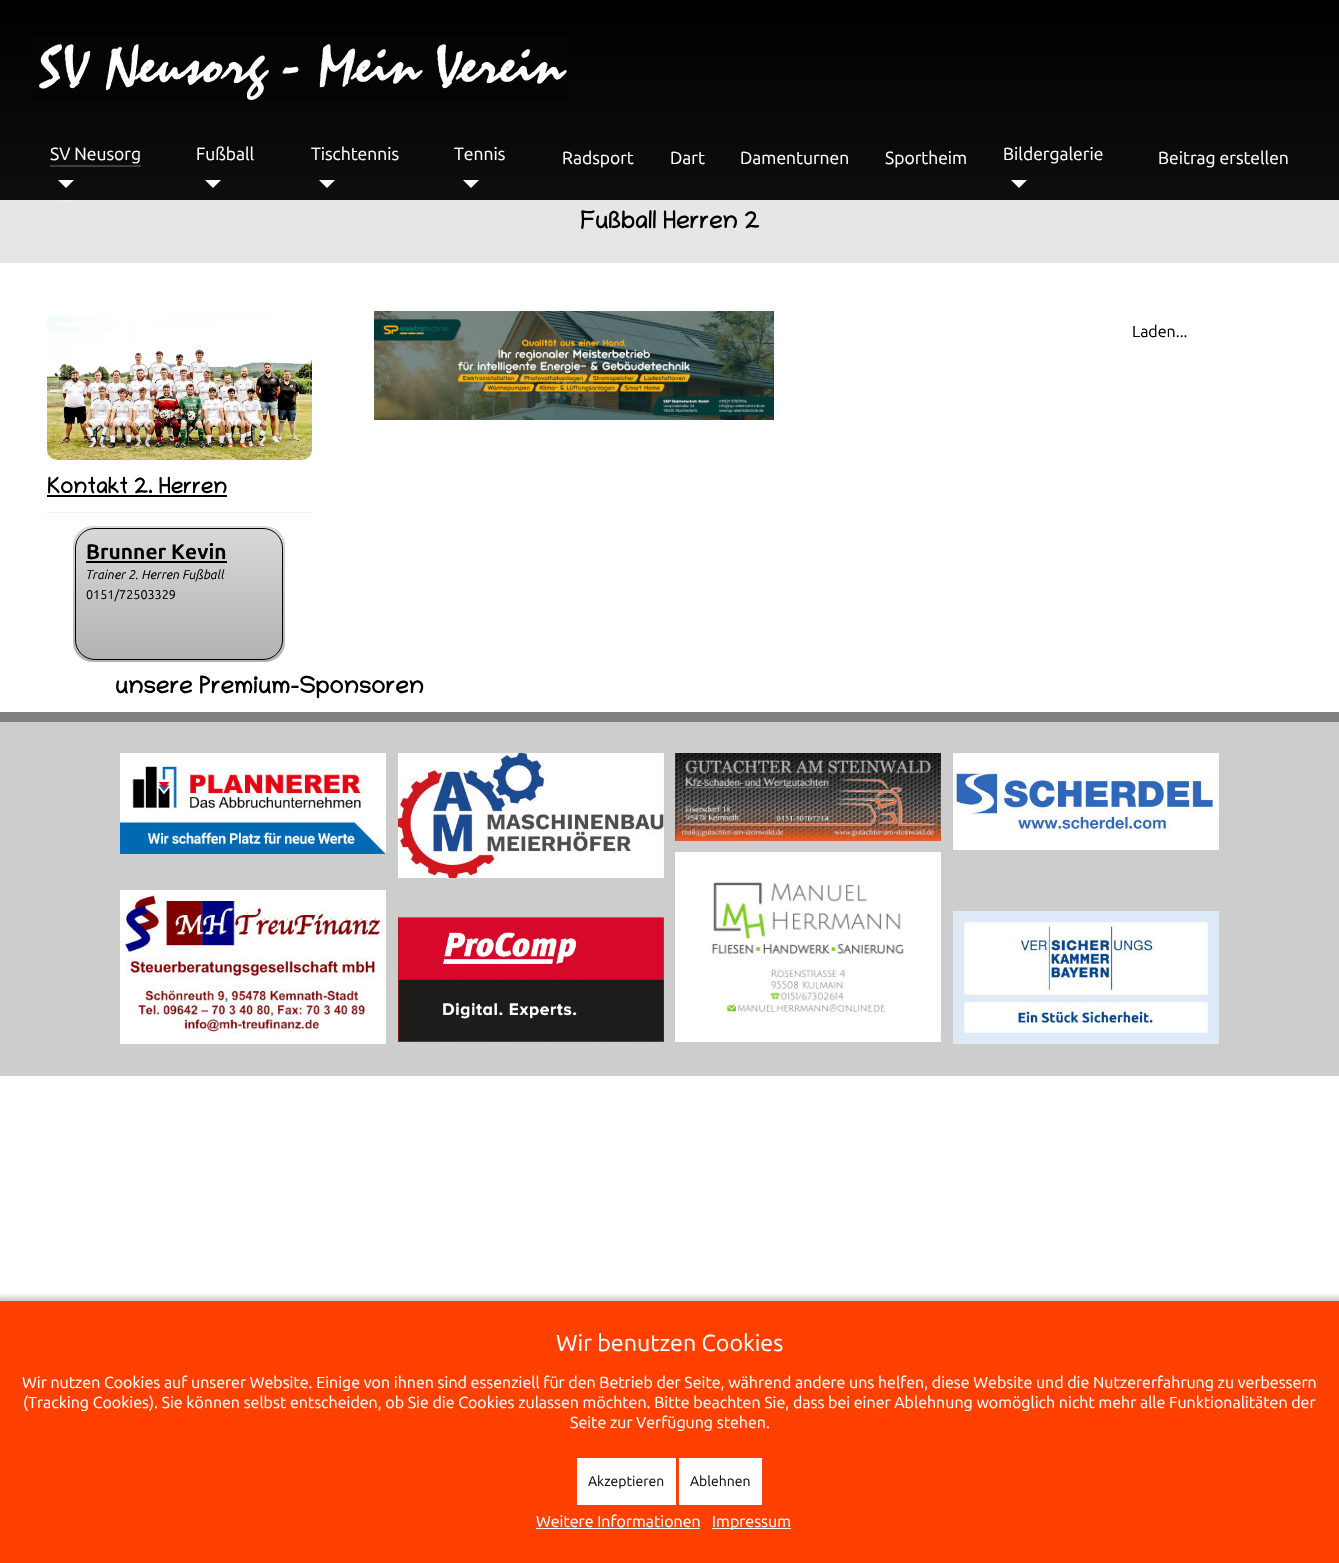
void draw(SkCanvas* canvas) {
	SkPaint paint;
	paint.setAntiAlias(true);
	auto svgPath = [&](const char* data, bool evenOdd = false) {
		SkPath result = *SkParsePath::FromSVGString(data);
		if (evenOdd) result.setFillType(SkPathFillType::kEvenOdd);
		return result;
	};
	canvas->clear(0xffffffff);
	{
		const SkColor colors[] = {0xff000000, 0xff0e0e0e};
		const float stops[] = {0, 1};
		const SkPoint ends[] = {{670, 0}, {670, 200}};
		paint.setShader(SkGradientShader::MakeLinear(ends, colors, stops, 2, SkTileMode::kClamp));
		paint.setAlpha(255);
	}
	canvas->drawRect(SkRect::MakeXYWH(0, 0, 1339, 200), paint);
	canvas->drawImageRect(SkImages::DeferredFromEncodedData(SkData::MakeFromFileName("img1.png")), SkRect::MakeXYWH(32, 37, 536, 64), SkSamplingOptions());
	SkFont f1(fontMgr->matchFamilyStyle("Ubuntu", SkFontStyle::Normal()), 17.5);
	f1.setSubpixel(true);
	paint.setShader(nullptr);
	paint.setColor(0xffffffff);
	canvas->drawString("SV Neusorg", 50, 160, f1, paint);
	paint.setColor(0xff3d3d3d);
	canvas->drawRect(SkRect::MakeXYWH(50, 165, 91, 2), paint);
	paint.setColor(0xffffffff);
	canvas->drawPath(svgPath("M58 180H74L66 188Z"), paint);
	paint.setColor(0xffe6e6e6);
	canvas->drawRect(SkRect::MakeXYWH(0, 200, 1339, 63), paint);
	paint.setColor(0xffebebeb);
	canvas->drawRect(SkRect::MakeXYWH(58, 200, 16, 2), paint);
	paint.setColor(0xffffffff);
	canvas->drawString("Fußball", 196, 160, f1, paint);
	canvas->drawPath(svgPath("M205 180H221L213 188Z"), paint);
	canvas->drawString("Tischtennis", 311, 160, f1, paint);
	canvas->drawPath(svgPath("M319 180H335L327 188Z"), paint);
	canvas->drawString("Tennis", 454, 160, f1, paint);
	canvas->drawPath(svgPath("M463 180H479L471 188Z"), paint);
	canvas->drawString("Radsport", 562, 164, f1, paint);
	canvas->drawString("Dart", 670, 164, f1, paint);
	canvas->drawString("Damenturnen", 740, 164, f1, paint);
	canvas->drawString("Sportheim", 885, 164, f1, paint);
	canvas->drawString("Bildergalerie", 1003, 160, f1, paint);
	canvas->drawPath(svgPath("M1011 180H1027L1019 188Z"), paint);
	canvas->drawString("Beitrag erstellen", 1158, 164, f1, paint);
	SkFont f2(fontMgr->matchFamilyStyle("Chilanka", SkFontStyle::Bold()), 24);
	f2.setSubpixel(true);
	paint.setColor(0xff000000);
	canvas->drawString("Fußball Herren 2", 580, 228, f2, paint);
	canvas->drawImageRect(SkImages::DeferredFromEncodedData(SkData::MakeFromFileName("img2.png")), SkRect::MakeXYWH(374, 311, 400, 109), SkSamplingOptions());
	SkFont f3(fontMgr->matchFamilyStyle("Ubuntu", SkFontStyle::Normal()), 16);
	f3.setSubpixel(true);
	canvas->drawString("Laden...", 1132, 337, f3, paint);
	canvas->drawImageRect(SkImages::DeferredFromEncodedData(SkData::MakeFromFileName("img3.png")), SkRect::MakeXYWH(47, 312, 265, 148), SkSamplingOptions());
	paint.setColor(0xffeeeeee);
	canvas->drawRect(SkRect::MakeXYWH(47, 512, 265, 1), paint);
	SkFont f4(fontMgr->matchFamilyStyle("Chilanka", SkFontStyle::Bold()), 22);
	f4.setSubpixel(true);
	paint.setColor(0xff000000);
	canvas->drawString("Kontakt 2. Herren", 47, 493, f4, paint);
	canvas->drawRect(SkRect::MakeXYWH(47, 495, 180, 2), paint);
	{
		const SkColor colors[] = {0xffd9d9d9, 0xffb2b2b2};
		const float stops[] = {0, 1};
		const SkPoint ends[] = {{179, 526}, {179, 662}};
		paint.setShader(SkGradientShader::MakeLinear(ends, colors, stops, 2, SkTileMode::kClamp));
		paint.setAlpha(255);
	}
	canvas->drawRoundRect(SkRect::MakeXYWH(73, 526, 212, 136), 20, 20, paint);
	paint.setStroke(true);
	paint.setStrokeWidth(1);
	paint.setShader(nullptr);
	paint.setColor(0xff000000);
	canvas->drawRoundRect(SkRect::MakeXYWH(75.5, 528.5, 207, 131), 19.5, 19.5, paint);
	SkFont f5(fontMgr->matchFamilyStyle("Ubuntu", SkFontStyle::Bold()), 21);
	f5.setSubpixel(true);
	paint.setStroke(false);
	canvas->drawString("Brunner Kevin", 86, 559, f5, paint);
	canvas->drawRect(SkRect::MakeXYWH(86, 561, 141, 2), paint);
	SkFont f6(fontMgr->matchFamilyStyle("Ubuntu", SkFontStyle::Italic()), 12.6);
	f6.setSubpixel(true);
	canvas->drawString("Trainer 2. Herren Fußball", 86, 579, f6, paint);
	SkFont f7(fontMgr->matchFamilyStyle("Ubuntu", SkFontStyle::Normal()), 12.6);
	f7.setSubpixel(true);
	canvas->drawString("0151/72503329", 86, 599, f7, paint);
	canvas->drawString("unsere Premium-Sponsoren", 115, 693, f2, paint);
	paint.setColor(0xff808080);
	canvas->drawRect(SkRect::MakeXYWH(0, 712, 1339, 10), paint);
	paint.setColor(0xffcdcdcd);
	canvas->drawRect(SkRect::MakeXYWH(0, 722, 1339, 354), paint);
	canvas->drawImageRect(SkImages::DeferredFromEncodedData(SkData::MakeFromFileName("img4.png")), SkRect::MakeXYWH(120, 753, 266, 101), SkSamplingOptions());
	canvas->drawImageRect(SkImages::DeferredFromEncodedData(SkData::MakeFromFileName("img5.png")), SkRect::MakeXYWH(120, 890, 266, 154), SkSamplingOptions());
	canvas->drawImageRect(SkImages::DeferredFromEncodedData(SkData::MakeFromFileName("img6.png")), SkRect::MakeXYWH(398, 753, 266, 125), SkSamplingOptions());
	canvas->drawImageRect(SkImages::DeferredFromEncodedData(SkData::MakeFromFileName("img7.png")), SkRect::MakeXYWH(398, 917, 266, 125), SkSamplingOptions());
	canvas->drawImageRect(SkImages::DeferredFromEncodedData(SkData::MakeFromFileName("img8.png")), SkRect::MakeXYWH(675, 753, 266, 88), SkSamplingOptions());
	canvas->drawImageRect(SkImages::DeferredFromEncodedData(SkData::MakeFromFileName("img9.png")), SkRect::MakeXYWH(675, 852, 266, 190), SkSamplingOptions());
	canvas->drawImageRect(SkImages::DeferredFromEncodedData(SkData::MakeFromFileName("img10.png")), SkRect::MakeXYWH(953, 753, 266, 97), SkSamplingOptions());
	canvas->drawImageRect(SkImages::DeferredFromEncodedData(SkData::MakeFromFileName("img11.png")), SkRect::MakeXYWH(953, 911, 266, 133), SkSamplingOptions());
	paint.setColor(0x36000000);
	paint.setMaskFilter(SkMaskFilter::MakeBlur(kNormal_SkBlurStyle, 2.5));
	canvas->drawRect(SkRect::MakeXYWH(-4, 1297, 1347, 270), paint);
	paint.setMaskFilter(nullptr);
	paint.setColor(0xffff4000);
	canvas->drawRect(SkRect::MakeXYWH(0, 1301, 1339, 262), paint);
	SkFont f8(fontMgr->matchFamilyStyle("Ubuntu", SkFontStyle::Normal()), 23.25);
	f8.setSubpixel(true);
	paint.setColor(0xffffffff);
	canvas->drawString("Wir benutzen Cookies", 556, 1351, f8, paint);
	canvas->drawString("Wir nutzen Cookies auf unserer Website. Einige von ihnen sind essenziell für den Betrieb der Seite, während andere uns helfen, diese Website und die Nutzererfahrung zu verbessern", 22, 1388, f3, paint);
	canvas->drawString("(Tracking Cookies). Sie können selbst entscheiden, ob Sie die Cookies zulassen möchten. Bitte beachten Sie, dass bei einer Ablehnung womöglich nicht mehr alle Funktionalitäten der", 23, 1408, f3, paint);
	canvas->drawString("Seite zur Verfügung stehen.", 570, 1428, f3, paint);
	canvas->drawRect(SkRect::MakeXYWH(577, 1458, 99, 47), paint);
	SkFont f9(fontMgr->matchFamilyStyle("Ubuntu", SkFontStyle::Normal()), 14);
	f9.setSubpixel(true);
	paint.setColor(0xff111111);
	canvas->drawString("Akzeptieren", 588, 1486, f9, paint);
	paint.setColor(0xffffffff);
	canvas->drawRect(SkRect::MakeXYWH(679, 1458, 83, 47), paint);
	paint.setColor(0xff111111);
	canvas->drawString("Ablehnen", 690, 1486, f9, paint);
	paint.setColor(0xffffffff);
	canvas->drawString("Weitere Informationen", 536, 1527, f3, paint);
	canvas->drawRect(SkRect::MakeXYWH(536, 1528, 164, 1), paint);
	canvas->drawRect(SkRect::MakeXYWH(712, 1528, 79, 1), paint);
	canvas->drawString("Impressum", 712, 1527, f3, paint);
}
